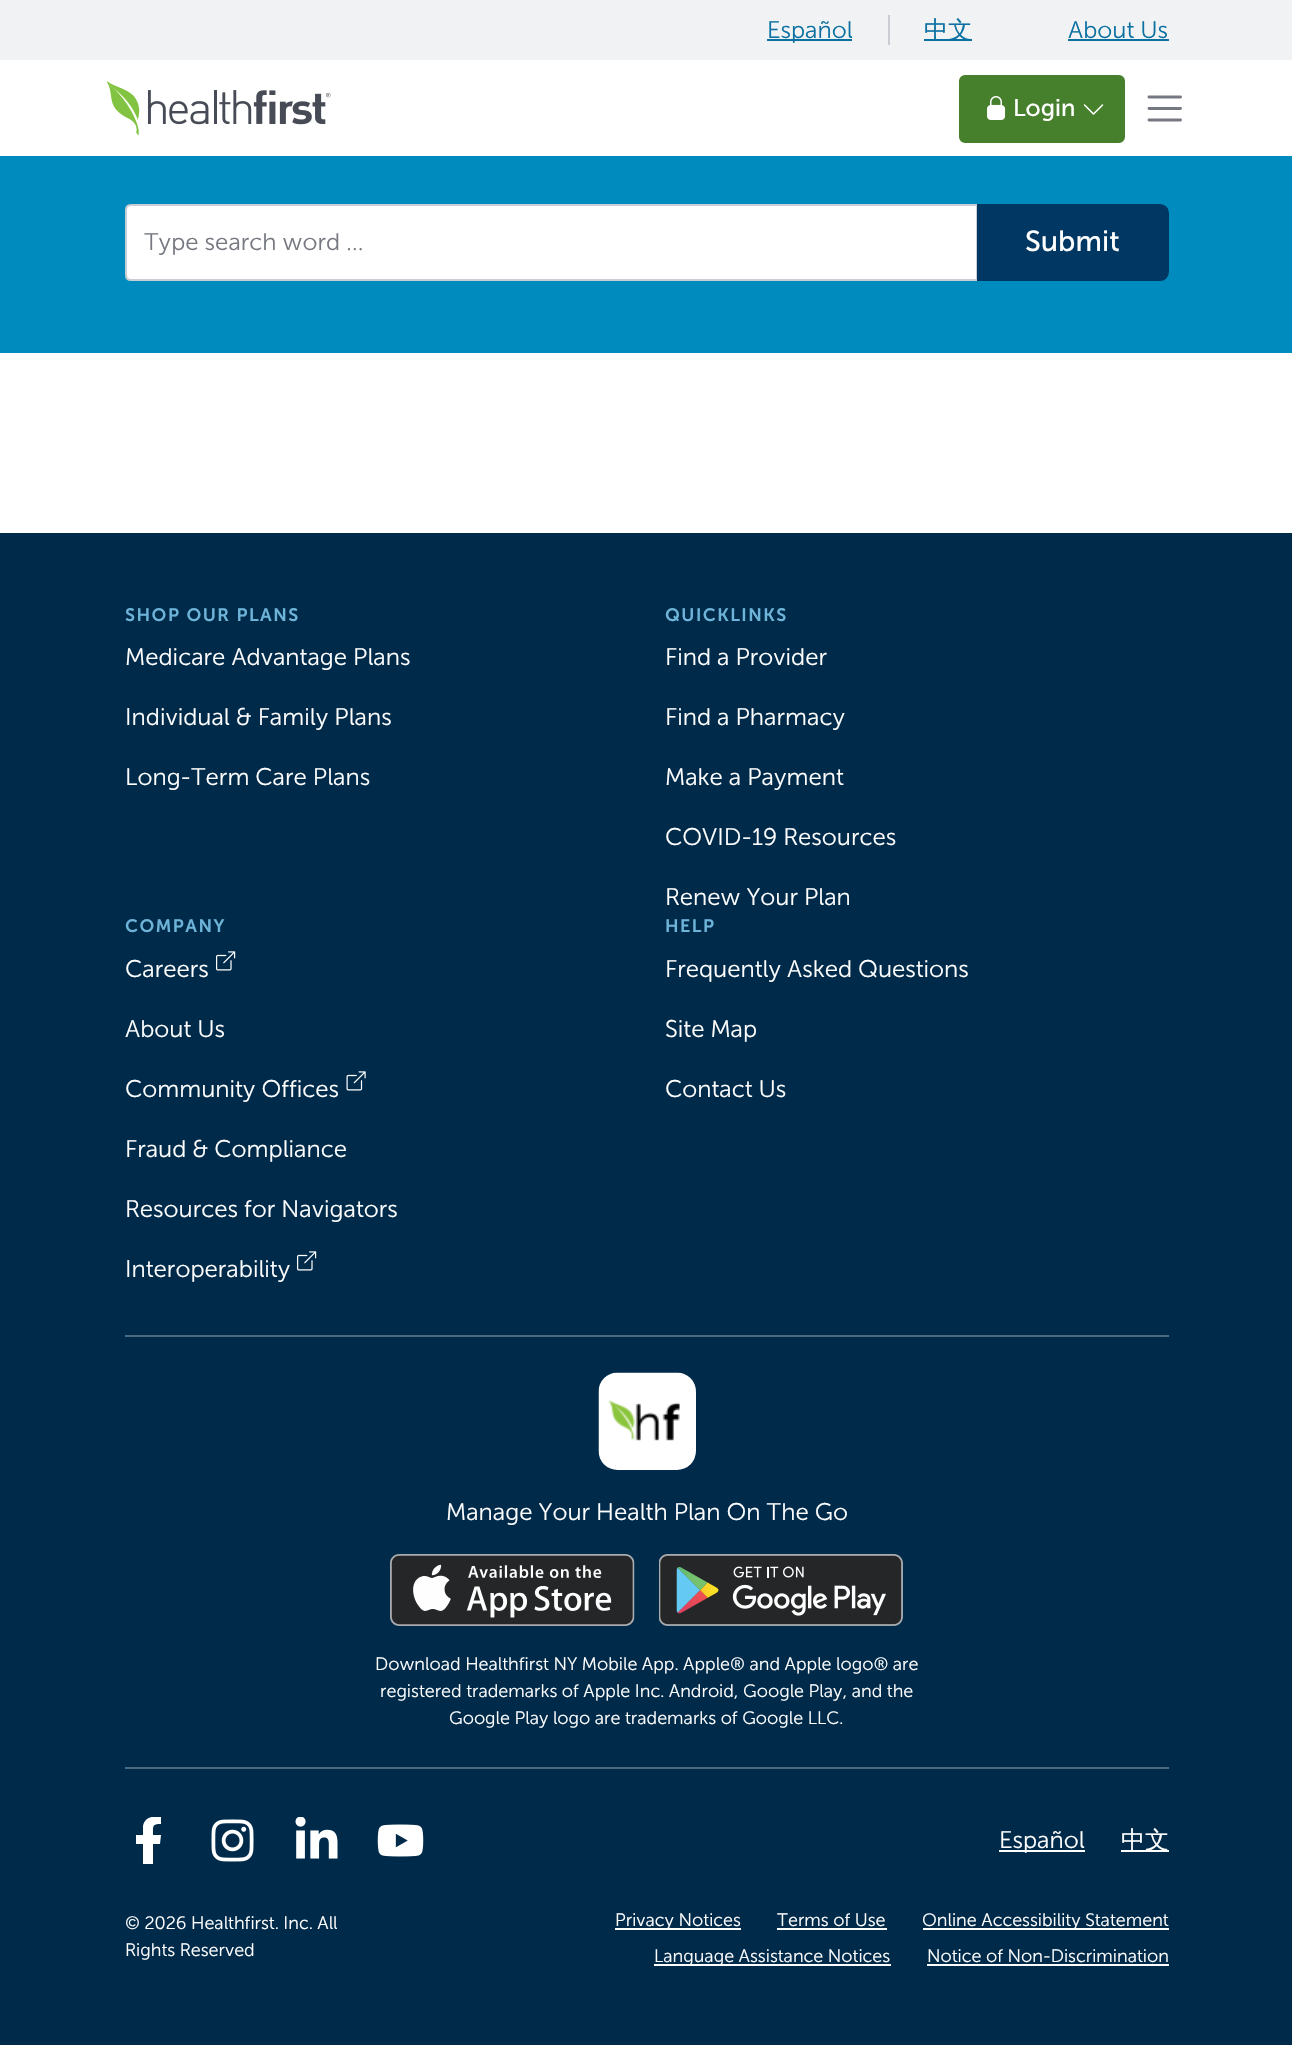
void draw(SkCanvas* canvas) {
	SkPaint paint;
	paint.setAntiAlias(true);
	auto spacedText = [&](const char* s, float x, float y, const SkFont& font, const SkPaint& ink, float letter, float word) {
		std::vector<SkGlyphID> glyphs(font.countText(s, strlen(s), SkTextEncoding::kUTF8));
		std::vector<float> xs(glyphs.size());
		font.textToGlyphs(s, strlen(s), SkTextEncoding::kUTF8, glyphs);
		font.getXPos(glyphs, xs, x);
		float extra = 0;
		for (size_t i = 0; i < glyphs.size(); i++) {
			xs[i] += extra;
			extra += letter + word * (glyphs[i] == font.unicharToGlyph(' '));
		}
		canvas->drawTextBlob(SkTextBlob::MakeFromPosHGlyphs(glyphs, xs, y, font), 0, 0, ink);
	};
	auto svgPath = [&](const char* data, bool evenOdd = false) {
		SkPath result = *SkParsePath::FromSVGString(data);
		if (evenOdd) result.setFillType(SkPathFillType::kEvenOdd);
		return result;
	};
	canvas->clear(0xffffffff);
	paint.setColor(0xfff1f2f3);
	canvas->drawRect(SkRect::MakeXYWH(0, 0, 1292, 60), paint);
	paint.setColor(0xff0b71a2);
	canvas->drawRect(SkRect::MakeXYWH(767, 39, 85, 2), paint);
	SkFont f1(fontMgr->matchFamilyStyle("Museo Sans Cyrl", SkFontStyle(300, SkFontStyle::kNormal_Width, SkFontStyle::kUpright_Slant)), 24);
	f1.setSubpixel(true);
	canvas->drawString("Español", 767, 38, f1, paint);
	paint.setColor(0xffcacdd3);
	canvas->drawRect(SkRect::MakeXYWH(888, 15, 2, 30), paint);
	paint.setColor(0xff0b71a2);
	canvas->drawRect(SkRect::MakeXYWH(924, 39, 48, 2), paint);
	SkFont f2(fontMgr->matchFamilyStyle("WenQuanYi Zen Hei", SkFontStyle(500, SkFontStyle::kNormal_Width, SkFontStyle::kUpright_Slant)), 24);
	f2.setSubpixel(true);
	canvas->drawString("中文", 924, 38, f2, paint);
	canvas->drawString("About Us", 1068, 38, f1, paint);
	canvas->drawRect(SkRect::MakeXYWH(1068, 39, 101, 2), paint);
	canvas->drawImageRect(SkImages::DeferredFromEncodedData(SkData::MakeFromFileName("img1.png")), SkRect::MakeXYWH(107, 81, 224, 55), SkSamplingOptions());
	paint.setColor(0xff46802d);
	canvas->drawRoundRect(SkRect::MakeXYWH(960, 76, 164, 66), 5, 5, paint);
	paint.setStroke(true);
	paint.setStrokeWidth(2);
	canvas->drawRoundRect(SkRect::MakeXYWH(960, 76, 164, 66), 5, 5, paint);
	canvas->drawImageRect(SkImages::DeferredFromEncodedData(SkData::MakeFromFileName("img2.png")), SkRect::MakeXYWH(987, 96, 19, 24), SkSamplingOptions());
	SkFont f3(fontMgr->matchFamilyStyle("Museo Sans Cyrl", SkFontStyle::Normal()), 24);
	f3.setSubpixel(true);
	paint.setStroke(false);
	paint.setColor(0xffffffff);
	canvas->drawString("Login", 1013, 116, f3, paint);
	canvas->drawImageRect(SkImages::DeferredFromEncodedData(SkData::MakeFromFileName("img3.png")), SkRect::MakeXYWH(1083, 104, 21, 11), SkSamplingOptions());
	paint.setStroke(true);
	paint.setStrokeWidth(2.9);
	paint.setStrokeCap(SkPaint::kRound_Cap);
	paint.setColor(0xff757880);
	canvas->drawPath(svgPath("M1149 97H1180.5M1149 108.5H1180.5M1149 120H1180.5"), paint);
	paint.setStroke(false);
	paint.setColor(0xff008bbf);
	canvas->drawRect(SkRect::MakeXYWH(0, 156, 1292, 197), paint);
	paint.setColor(0xffffffff);
	canvas->drawPath(svgPath("M131 205H977V280H131C128 280 126 278 126 275V210C126 207 128 205 131 205Z"), paint);
	paint.setStroke(true);
	paint.setStrokeWidth(2);
	paint.setStrokeCap(SkPaint::kButt_Cap);
	paint.setColor(0xffcacdd3);
	canvas->drawPath(svgPath("M131 205H977V280H131C128 280 126 278 126 275V210C126 207 128 205 131 205Z"), paint);
	paint.setStroke(false);
	paint.setColor(0xff757880);
	canvas->drawString("Type search word", 144, 250, f1, paint);
	SkFont f4(fontMgr->matchFamilyStyle("Noto Sans", SkFontStyle(300, SkFontStyle::kNormal_Width, SkFontStyle::kUpright_Slant)), 24);
	f4.setSubpixel(true);
	canvas->drawString("…", 346, 250, f4, paint);
	paint.setColor(0xff003863);
	canvas->drawPath(svgPath("M978 205H1160C1164.5 205 1168 208.5 1168 213V272C1168 276.5 1164.5 280 1160 280H978Z"), paint);
	paint.setStroke(true);
	canvas->drawPath(svgPath("M978 205H1160C1164.5 205 1168 208.5 1168 213V272C1168 276.5 1164.5 280 1160 280H978Z"), paint);
	SkFont f5(fontMgr->matchFamilyStyle("Museo Sans Cyrl", SkFontStyle::Normal()), 29);
	f5.setSubpixel(true);
	paint.setStroke(false);
	paint.setColor(0xffffffff);
	canvas->drawString("Submit", 1025, 251, f5, paint);
	paint.setColor(0xff002a4a);
	canvas->drawRect(SkRect::MakeXYWH(0, 533, 1292, 1512), paint);
	SkFont f6(fontMgr->matchFamilyStyle("Museo Sans Cyrl", SkFontStyle(600, SkFontStyle::kNormal_Width, SkFontStyle::kUpright_Slant)), 18);
	f6.setSubpixel(true);
	paint.setColor(0xff6db4d8);
	spacedText("SHOP OUR PLANS", 125, 621, f6, paint, 1.5, 0);
	paint.setColor(0xffffffff);
	canvas->drawString("Medicare Advantage Plans", 125, 665, f1, paint);
	canvas->drawString("Individual & Family Plans", 125, 725, f1, paint);
	canvas->drawString("Long-Term Care Plans", 125, 785, f1, paint);
	paint.setColor(0xff6db4d8);
	spacedText("QUICKLINKS", 665, 621, f6, paint, 1.5, 0);
	paint.setColor(0xffffffff);
	canvas->drawString("Find a Provider", 665, 665, f1, paint);
	canvas->drawString("Find a Pharmacy", 665, 725, f1, paint);
	canvas->drawString("Make a Payment", 665, 785, f1, paint);
	canvas->drawString("COVID-19 Resources", 665, 845, f1, paint);
	canvas->drawString("Renew Your Plan", 665, 905, f1, paint);
	paint.setColor(0xff6db4d8);
	spacedText("COMPANY", 125, 932, f6, paint, 1.5, 0);
	paint.setColor(0xffffffff);
	canvas->drawString("Careers", 125, 977, f1, paint);
	canvas->drawImageRect(SkImages::DeferredFromEncodedData(SkData::MakeFromFileName("img4.png")), SkRect::MakeXYWH(216, 951, 20, 20), SkSamplingOptions());
	canvas->drawString("About Us", 125, 1037, f1, paint);
	canvas->drawString("Community Offices", 125, 1097, f1, paint);
	canvas->drawImageRect(SkImages::DeferredFromEncodedData(SkData::MakeFromFileName("img5.png")), SkRect::MakeXYWH(346, 1071, 20, 20), SkSamplingOptions());
	canvas->drawString("Fraud & Compliance", 125, 1157, f1, paint);
	canvas->drawString("Resources for Navigators", 125, 1217, f1, paint);
	canvas->drawString("Interoperability", 125, 1277, f1, paint);
	canvas->drawImageRect(SkImages::DeferredFromEncodedData(SkData::MakeFromFileName("img4.png")), SkRect::MakeXYWH(297, 1251, 20, 20), SkSamplingOptions());
	paint.setColor(0xff6db4d8);
	spacedText("HELP", 665, 932, f6, paint, 1.5, 0);
	paint.setColor(0xffffffff);
	canvas->drawString("Frequently Asked Questions", 665, 977, f1, paint);
	canvas->drawString("Site Map", 665, 1037, f1, paint);
	canvas->drawString("Contact Us", 665, 1097, f1, paint);
	paint.setColor(0xff4d6a80);
	canvas->drawRect(SkRect::MakeXYWH(125, 1335, 1044, 2), paint);
	canvas->drawRect(SkRect::MakeXYWH(125, 1767, 1044, 2), paint);
	canvas->drawImageRect(SkImages::DeferredFromEncodedData(SkData::MakeFromFileName("img6.png")), SkRect::MakeXYWH(598, 1372, 98, 98), SkSamplingOptions());
	paint.setColor(0xffffffff);
	canvas->drawString("Manage Your Health Plan On The Go", 446, 1520, f1, paint);
	canvas->drawImageRect(SkImages::DeferredFromEncodedData(SkData::MakeFromFileName("img7.png")), SkRect::MakeXYWH(390, 1554, 245, 72), SkSamplingOptions());
	canvas->drawImageRect(SkImages::DeferredFromEncodedData(SkData::MakeFromFileName("img8.png")), SkRect::MakeXYWH(659, 1554, 244, 72), SkSamplingOptions());
	SkFont f7(fontMgr->matchFamilyStyle("Museo Sans Cyrl", SkFontStyle(300, SkFontStyle::kNormal_Width, SkFontStyle::kUpright_Slant)), 18);
	f7.setSubpixel(true);
	canvas->drawString("Download Healthfirst NY Mobile App. Apple® and Apple logo® are", 375, 1670, f7, paint);
	canvas->drawString("registered trademarks of Apple Inc. Android, Google Play, and the", 380, 1697, f7, paint);
	canvas->drawString("Google Play logo are trademarks of Google LLC.", 449, 1724, f7, paint);
	canvas->save();
	canvas->clipRect(SkRect::MakeXYWH(125, 1817, 48, 48));
	canvas->drawPath(svgPath("M160 1844L161 1835H153C153 1826 152 1824 161 1824V1817C154 1816 145 1816 143 1826V1835H136V1844H143V1864H153V1844Z"), paint);
	canvas->restore();
	canvas->drawImageRect(SkImages::DeferredFromEncodedData(SkData::MakeFromFileName("img9.png")), SkRect::MakeXYWH(211, 1819, 43, 43), SkSamplingOptions());
	canvas->drawImageRect(SkImages::DeferredFromEncodedData(SkData::MakeFromFileName("img10.png")), SkRect::MakeXYWH(295, 1817, 43, 42), SkSamplingOptions());
	canvas->drawImageRect(SkImages::DeferredFromEncodedData(SkData::MakeFromFileName("img11.png")), SkRect::MakeXYWH(377, 1824, 47, 33), SkSamplingOptions());
	canvas->drawRect(SkRect::MakeXYWH(999, 1850, 86, 2), paint);
	canvas->drawString("Español", 999, 1848, f1, paint);
	canvas->drawRect(SkRect::MakeXYWH(1121, 1850, 48, 2), paint);
	canvas->drawString("中文", 1121, 1848, f2, paint);
	canvas->drawString("© 2026 Healthfirst. Inc. All", 125, 1929, f7, paint);
	canvas->drawString("Rights Reserved", 125, 1956, f7, paint);
	canvas->drawRect(SkRect::MakeXYWH(615, 1928, 126, 2), paint);
	canvas->drawString("Privacy Notices", 615, 1926, f7, paint);
	canvas->drawString("Terms of Use", 777, 1926, f7, paint);
	canvas->drawRect(SkRect::MakeXYWH(777, 1928, 110, 2), paint);
	canvas->drawRect(SkRect::MakeXYWH(923, 1928, 246, 2), paint);
	canvas->drawString("Online Accessibility Statement", 922, 1926, f7, paint);
	canvas->drawRect(SkRect::MakeXYWH(654, 1964, 237, 2), paint);
	canvas->drawString("Language Assistance Notices", 654, 1962, f7, paint);
	canvas->drawString("Notice of Non-Discrimination", 927, 1962, f7, paint);
	canvas->drawRect(SkRect::MakeXYWH(927, 1964, 242, 2), paint);
}
